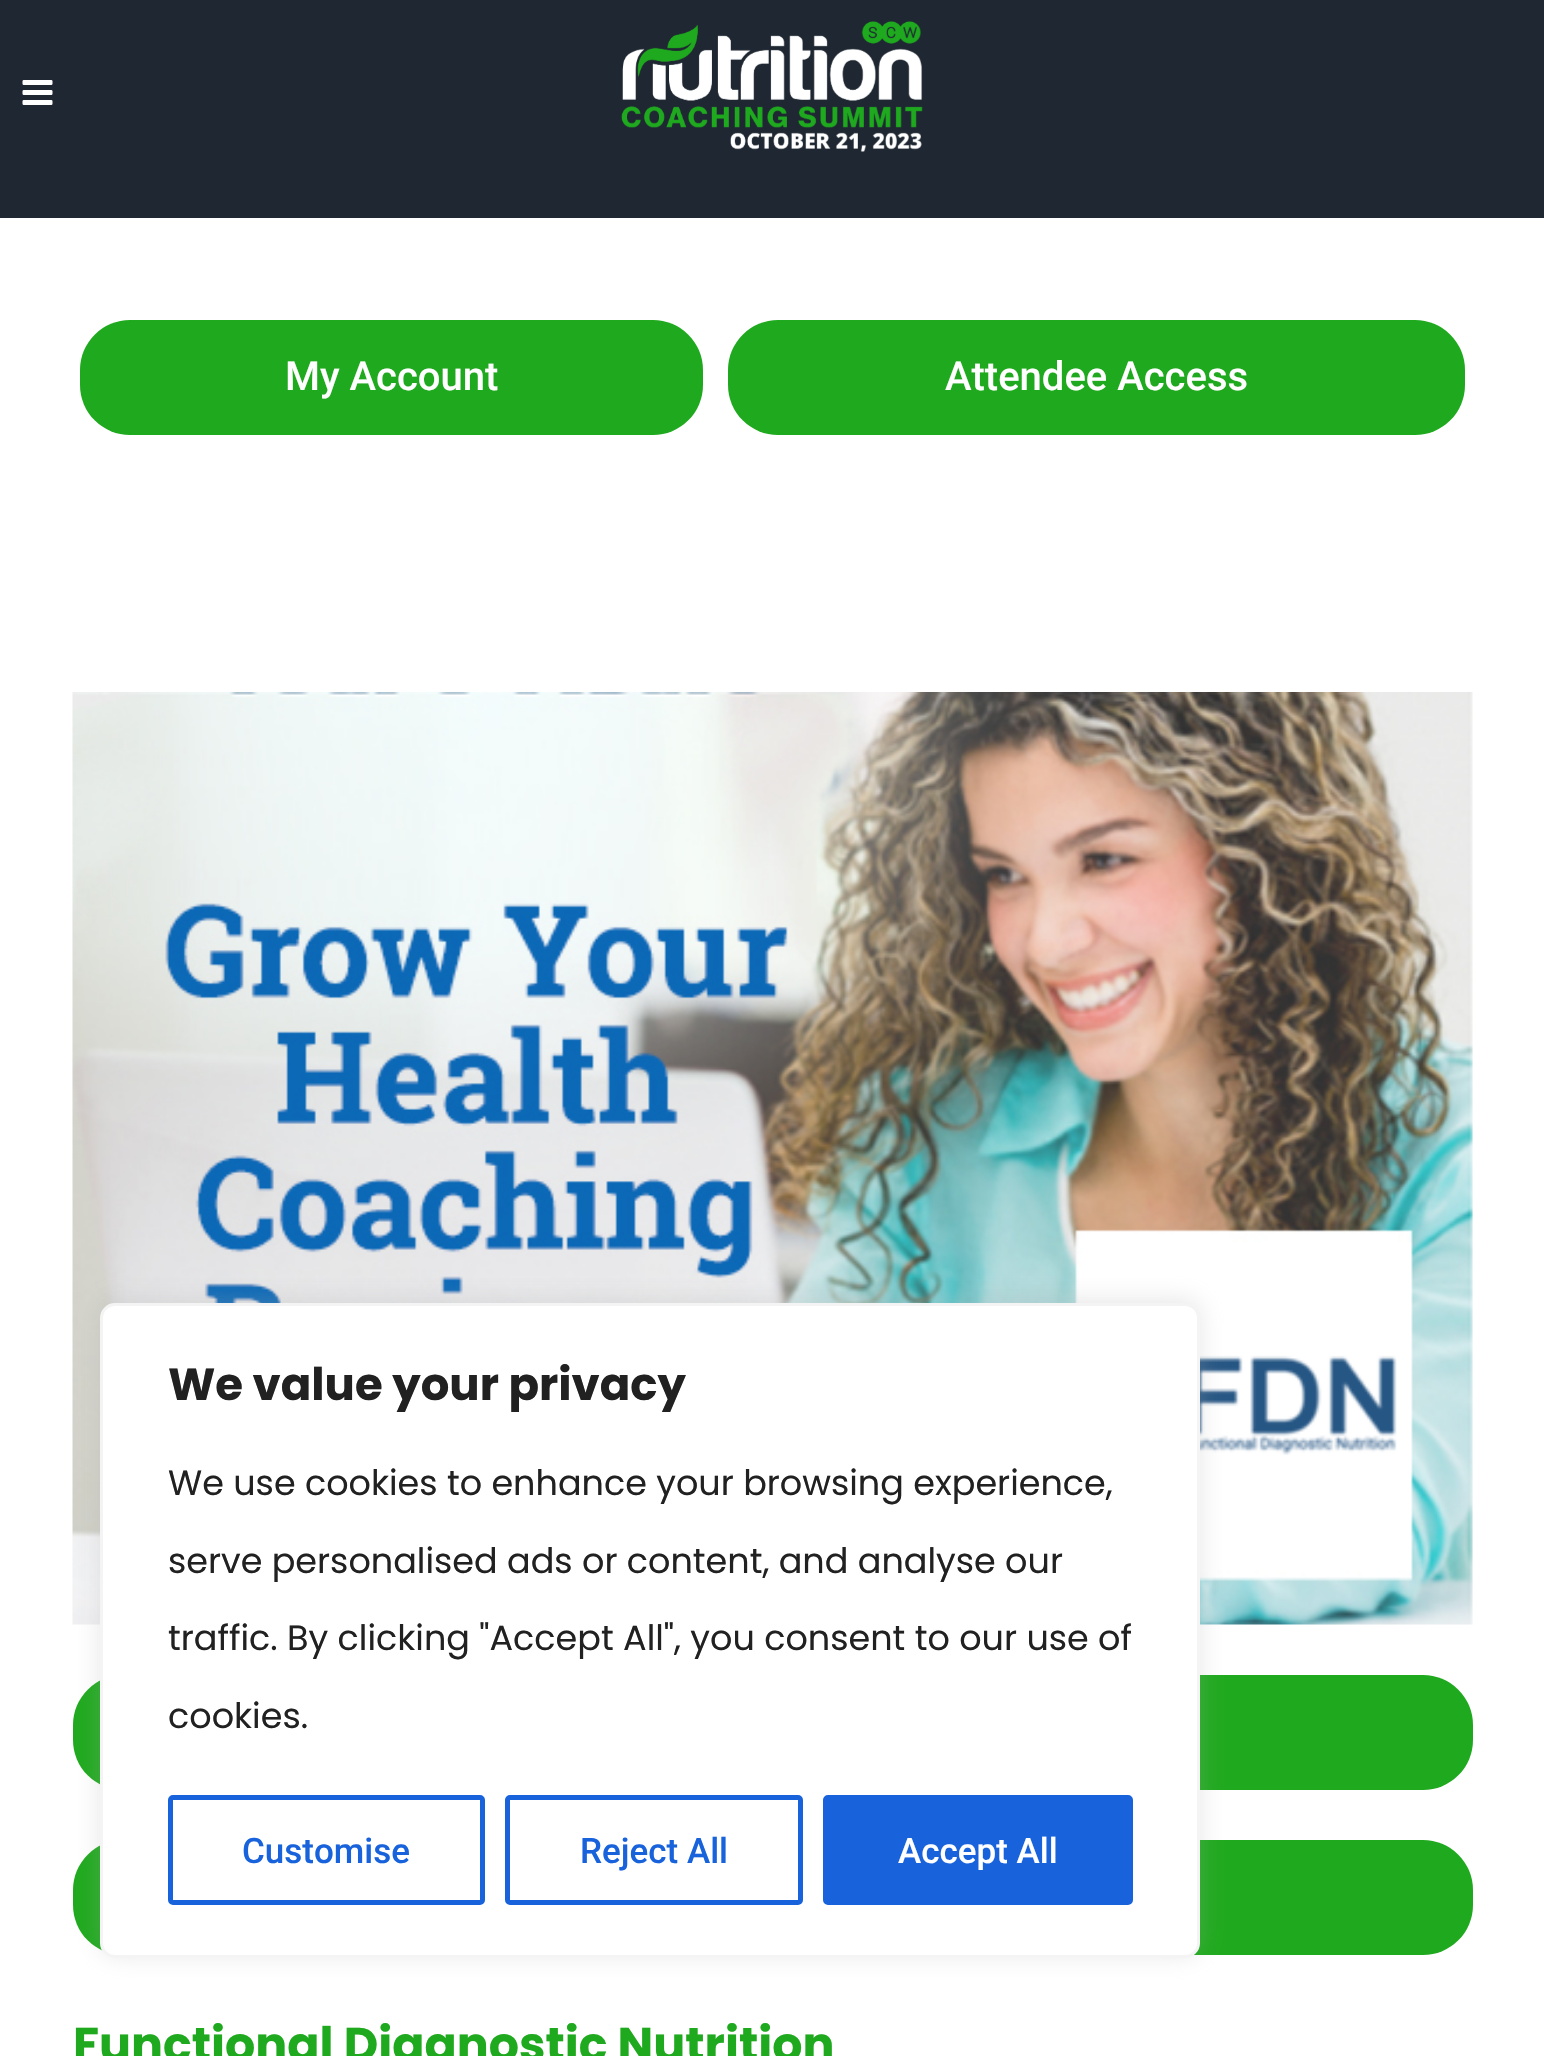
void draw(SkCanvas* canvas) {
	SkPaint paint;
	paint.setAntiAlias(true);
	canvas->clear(0xffffffff);
	paint.setColor(0xff1f2832);
	canvas->drawRect(SkRect::MakeXYWH(0, 0, 1544, 218), paint);
	canvas->drawImageRect(SkImages::DeferredFromEncodedData(SkData::MakeFromFileName("img1.png")), SkRect::MakeXYWH(22, 80, 31, 25), SkSamplingOptions());
	canvas->drawImageRect(SkImages::DeferredFromEncodedData(SkData::MakeFromFileName("img2.png")), SkRect::MakeXYWH(621, 21, 302, 131), SkSamplingOptions());
	paint.setColor(0xff1fa91e);
	canvas->drawRoundRect(SkRect::MakeXYWH(80, 320, 623, 115), 50, 50, paint);
	SkFont f1(fontMgr->matchFamilyStyle("Roboto", SkFontStyle(500, SkFontStyle::kNormal_Width, SkFontStyle::kUpright_Slant)), 40);
	f1.setSubpixel(true);
	paint.setColor(0xffffffff);
	canvas->drawString("My Account", 285, 390, f1, paint);
	paint.setColor(0xff1fa91e);
	canvas->drawRoundRect(SkRect::MakeXYWH(728, 320, 737, 115), 50, 50, paint);
	paint.setColor(0xffffffff);
	canvas->drawString("Attendee Access", 945, 390, f1, paint);
	canvas->drawImageRect(SkImages::DeferredFromEncodedData(SkData::MakeFromFileName("img3.png")), SkRect::MakeXYWH(72, 692, 1401, 933), SkSamplingOptions());
	paint.setColor(0xff1fa91e);
	canvas->drawRoundRect(SkRect::MakeXYWH(73, 1675, 1400, 115), 50, 50, paint);
	canvas->drawRoundRect(SkRect::MakeXYWH(73, 1840, 1400, 115), 50, 50, paint);
	SkFont f2(fontMgr->matchFamilyStyle("Poppins", SkFontStyle::Bold()), 47.5);
	f2.setSubpixel(true);
	canvas->drawString("Functional Diagnostic Nutrition", 73, 2061, f2, paint);
	paint.setColor(0x4dacabab);
	paint.setMaskFilter(SkMaskFilter::MakeBlur(kNormal_SkBlurStyle, 12.5));
	canvas->drawRoundRect(SkRect::MakeXYWH(100, 1300, 1100, 655), 15, 15, paint);
	paint.setMaskFilter(nullptr);
	paint.setColor(0xffffffff);
	canvas->drawRoundRect(SkRect::MakeXYWH(101.5, 1304.5, 1097, 652), 13.5, 13.5, paint);
	paint.setStroke(true);
	paint.setStrokeWidth(3);
	paint.setColor(0xfff4f4f4);
	canvas->drawRoundRect(SkRect::MakeXYWH(101.5, 1304.5, 1097, 652), 13.5, 13.5, paint);
	SkFont f3(fontMgr->matchFamilyStyle("Poppins", SkFontStyle::Bold()), 45);
	f3.setSubpixel(true);
	paint.setStroke(false);
	paint.setColor(0xff212121);
	canvas->drawString("We value your privacy", 168, 1400, f3, paint);
	SkFont f4(fontMgr->matchFamilyStyle("Poppins", SkFontStyle::Normal()), 35);
	f4.setSubpixel(true);
	canvas->drawString("We use cookies to enhance your browsing experience,", 168, 1495, f4, paint);
	canvas->drawString("serve personalised ads or content, and analyse our", 168, 1573, f4, paint);
	canvas->drawString("traffic. By clicking \"Accept All\", you consent to our use of", 168, 1650, f4, paint);
	canvas->drawString("cookies.", 168, 1728, f4, paint);
	paint.setStroke(true);
	paint.setStrokeWidth(5);
	paint.setColor(0xff1863dc);
	canvas->drawRoundRect(SkRect::MakeXYWH(170.5, 1797.5, 312, 105), 2.5, 2.5, paint);
	SkFont f5(fontMgr->matchFamilyStyle("Roboto", SkFontStyle(500, SkFontStyle::kNormal_Width, SkFontStyle::kUpright_Slant)), 35);
	f5.setSubpixel(true);
	paint.setStroke(false);
	canvas->drawString("Customise", 242, 1863, f5, paint);
	paint.setStroke(true);
	canvas->drawRoundRect(SkRect::MakeXYWH(507.5, 1797.5, 293, 105), 2.5, 2.5, paint);
	paint.setStroke(false);
	canvas->drawString("Reject All", 580, 1863, f5, paint);
	canvas->drawRoundRect(SkRect::MakeXYWH(825.5, 1797.5, 305, 105), 2.5, 2.5, paint);
	paint.setStroke(true);
	canvas->drawRoundRect(SkRect::MakeXYWH(825.5, 1797.5, 305, 105), 2.5, 2.5, paint);
	paint.setStroke(false);
	paint.setColor(0xffffffff);
	canvas->drawString("Accept All", 898, 1863, f5, paint);
}
